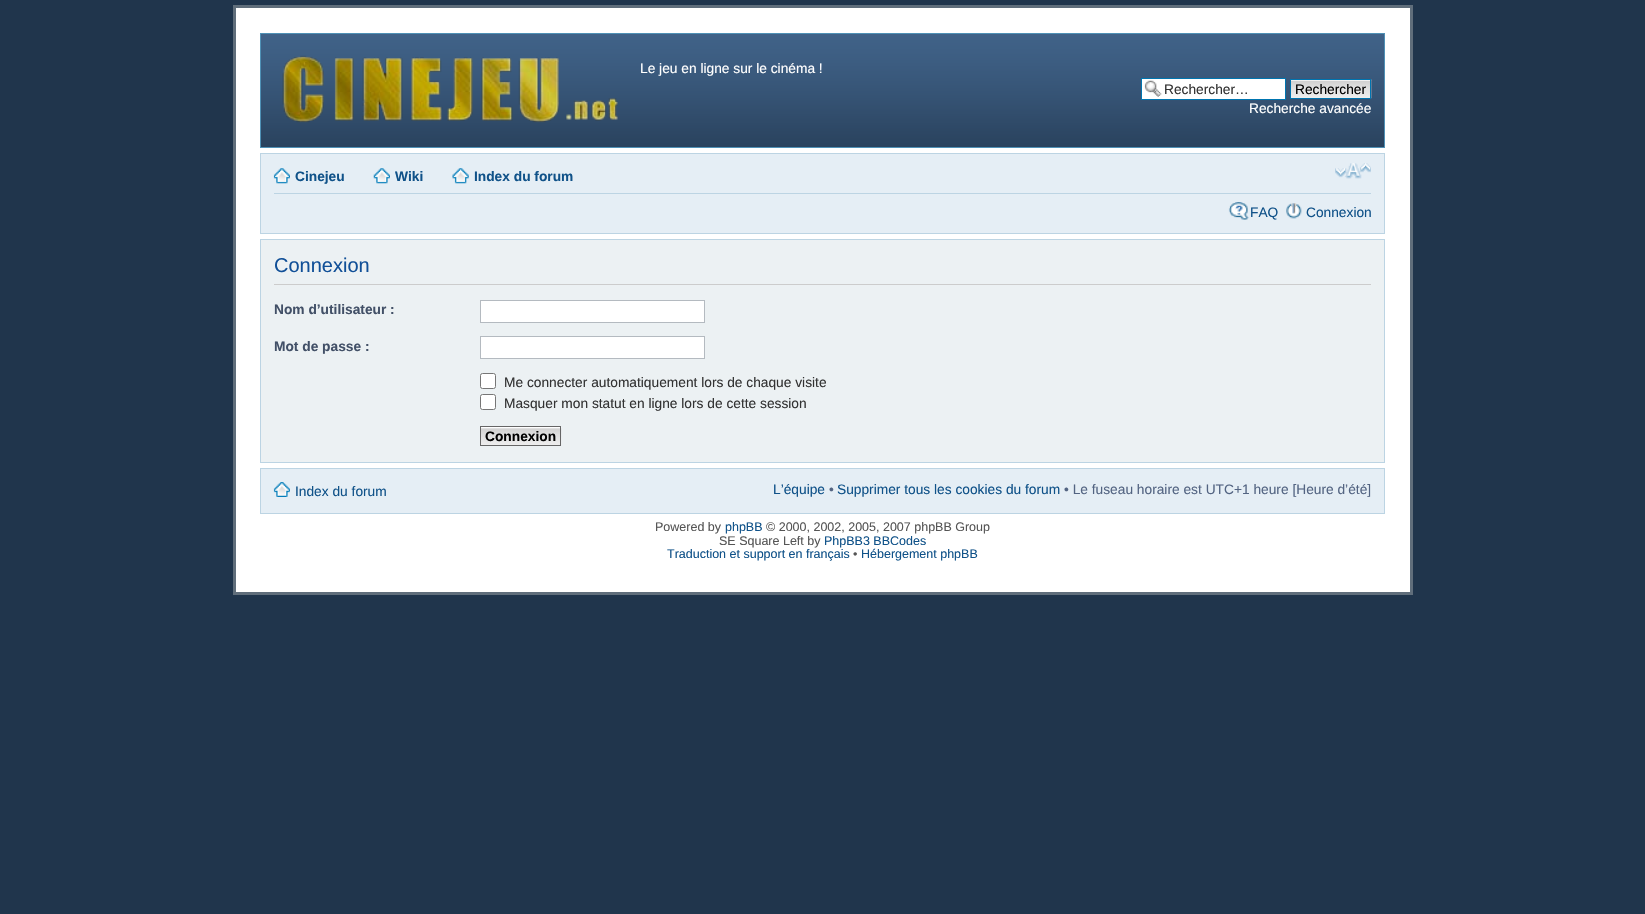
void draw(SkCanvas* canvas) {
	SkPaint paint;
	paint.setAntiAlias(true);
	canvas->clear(0xff20354c);
	paint.setColor(0xffffffff);
	canvas->drawRect(SkRect::MakeXYWH(234.5, 6.5, 1177, 587), paint);
	paint.setStroke(true);
	paint.setStrokeWidth(3);
	paint.setColor(0xff606e7b);
	canvas->drawRect(SkRect::MakeXYWH(234.5, 6.5, 1177, 587), paint);
	canvas->drawImageRect(SkImages::DeferredFromEncodedData(SkData::MakeFromFileName("img1.png")), SkRect::MakeXYWH(261, 34, 1123, 113), SkSamplingOptions());
	paint.setStrokeWidth(1);
	paint.setColor(0xff4f91b6);
	canvas->drawRect(SkRect::MakeXYWH(260.5, 33.5, 1124, 114), paint);
	canvas->drawImageRect(SkImages::DeferredFromEncodedData(SkData::MakeFromFileName("img2.png")), SkRect::MakeXYWH(282, 55, 336, 68), SkSamplingOptions());
	SkFont f1(fontMgr->matchFamilyStyle("Liberation Sans", SkFontStyle::Normal()), 13.75);
	f1.setSubpixel(true);
	paint.setStroke(false);
	paint.setColor(0xffffffff);
	canvas->drawString("Le jeu en ligne sur le cinéma !", 640, 73, f1, paint);
	canvas->drawRect(SkRect::MakeXYWH(1142, 79, 143, 20), paint);
	canvas->drawImageRect(SkImages::DeferredFromEncodedData(SkData::MakeFromFileName("img3.png")), SkRect::MakeXYWH(1144, 80, 18, 17), SkSamplingOptions());
	paint.setStroke(true);
	paint.setColor(0xff0075b0);
	canvas->drawRect(SkRect::MakeXYWH(1141.5, 78.5, 144, 21), paint);
	paint.setStroke(false);
	paint.setColor(0xff333333);
	canvas->drawString("Rechercher…", 1164, 94, f1, paint);
	canvas->drawImageRect(SkImages::DeferredFromEncodedData(SkData::MakeFromFileName("img4.png")), SkRect::MakeXYWH(1291, 79, 81, 20), SkSamplingOptions());
	paint.setStroke(true);
	paint.setColor(0xff0075b0);
	canvas->drawRect(SkRect::MakeXYWH(1290.5, 79.5, 80, 19), paint);
	paint.setStroke(false);
	paint.setColor(0xff000000);
	canvas->drawString("Rechercher", 1295, 94, f1, paint);
	paint.setColor(0xffffffff);
	canvas->drawString("Recherche avancée", 1249, 113, f1, paint);
	paint.setColor(0xffe5eef5);
	canvas->drawRect(SkRect::MakeXYWH(260.5, 153.5, 1124, 80), paint);
	paint.setStroke(true);
	paint.setColor(0xffbcd4e3);
	canvas->drawRect(SkRect::MakeXYWH(260.5, 153.5, 1124, 80), paint);
	paint.setStroke(false);
	canvas->drawRect(SkRect::MakeXYWH(274, 193, 1097, 1), paint);
	canvas->drawImageRect(SkImages::DeferredFromEncodedData(SkData::MakeFromFileName("img5.png")), SkRect::MakeXYWH(273, 168, 17, 16), SkSamplingOptions());
	SkFont f2(fontMgr->matchFamilyStyle("Liberation Sans", SkFontStyle::Bold()), 13.75);
	f2.setSubpixel(true);
	paint.setColor(0xff105289);
	canvas->drawString("Cinejeu", 295, 181, f2, paint);
	canvas->drawImageRect(SkImages::DeferredFromEncodedData(SkData::MakeFromFileName("img6.png")), SkRect::MakeXYWH(373, 168, 17, 16), SkSamplingOptions());
	canvas->drawString("Wiki", 395, 181, f2, paint);
	canvas->drawImageRect(SkImages::DeferredFromEncodedData(SkData::MakeFromFileName("img7.png")), SkRect::MakeXYWH(452, 168, 17, 16), SkSamplingOptions());
	canvas->drawString("Index du forum", 474, 181, f2, paint);
	canvas->drawImageRect(SkImages::DeferredFromEncodedData(SkData::MakeFromFileName("img8.png")), SkRect::MakeXYWH(1335, 163, 36, 16), SkSamplingOptions());
	canvas->drawImageRect(SkImages::DeferredFromEncodedData(SkData::MakeFromFileName("img9.png")), SkRect::MakeXYWH(1228, 202, 21, 18), SkSamplingOptions());
	canvas->drawString("FAQ", 1250, 217, f1, paint);
	canvas->drawImageRect(SkImages::DeferredFromEncodedData(SkData::MakeFromFileName("img10.png")), SkRect::MakeXYWH(1286, 203, 16, 16), SkSamplingOptions());
	canvas->drawString("Connexion", 1306, 217, f1, paint);
	paint.setColor(0xffecf1f3);
	canvas->drawRect(SkRect::MakeXYWH(260.5, 239.5, 1124, 223), paint);
	paint.setStroke(true);
	paint.setColor(0xffbcd4e3);
	canvas->drawRect(SkRect::MakeXYWH(260.5, 239.5, 1124, 223), paint);
	paint.setStroke(false);
	paint.setColor(0xffcccccc);
	canvas->drawRect(SkRect::MakeXYWH(274, 284, 1097, 1), paint);
	SkFont f3(fontMgr->matchFamilyStyle("Liberation Sans", SkFontStyle::Normal()), 20);
	f3.setSubpixel(true);
	paint.setColor(0xff115098);
	canvas->drawString("Connexion", 274, 272, f3, paint);
	paint.setColor(0xff425067);
	canvas->drawString("Nom d’utilisateur :", 274, 314, f2, paint);
	paint.setColor(0xffffffff);
	canvas->drawRect(SkRect::MakeXYWH(480.5, 300.5, 224, 22), paint);
	paint.setStroke(true);
	paint.setColor(0xffb4bac0);
	canvas->drawRect(SkRect::MakeXYWH(480.5, 300.5, 224, 22), paint);
	paint.setStroke(false);
	paint.setColor(0xff425067);
	canvas->drawString("Mot de passe :", 274, 351, f2, paint);
	paint.setColor(0xffffffff);
	canvas->drawRect(SkRect::MakeXYWH(480.5, 336.5, 224, 22), paint);
	paint.setStroke(true);
	paint.setColor(0xffb4bac0);
	canvas->drawRect(SkRect::MakeXYWH(480.5, 336.5, 224, 22), paint);
	paint.setStroke(false);
	paint.setColor(0xffffffff);
	canvas->drawRoundRect(SkRect::MakeXYWH(480.5, 373.5, 15, 15), 2, 2, paint);
	paint.setStroke(true);
	paint.setColor(0xff767676);
	canvas->drawRoundRect(SkRect::MakeXYWH(480.5, 373.5, 15, 15), 2, 2, paint);
	paint.setStroke(false);
	paint.setColor(0xff333333);
	canvas->drawString("Me connecter automatiquement lors de chaque visite", 504, 387, f1, paint);
	paint.setColor(0xffffffff);
	canvas->drawRoundRect(SkRect::MakeXYWH(480.5, 394.5, 15, 15), 2, 2, paint);
	paint.setStroke(true);
	paint.setColor(0xff767676);
	canvas->drawRoundRect(SkRect::MakeXYWH(480.5, 394.5, 15, 15), 2, 2, paint);
	paint.setStroke(false);
	paint.setColor(0xff333333);
	canvas->drawString("Masquer mon statut en ligne lors de cette session", 504, 408, f1, paint);
	canvas->drawImageRect(SkImages::DeferredFromEncodedData(SkData::MakeFromFileName("img11.png")), SkRect::MakeXYWH(481, 427, 81, 19), SkSamplingOptions());
	paint.setStroke(true);
	paint.setColor(0xff666666);
	canvas->drawRect(SkRect::MakeXYWH(480.5, 426.5, 80, 19), paint);
	paint.setStroke(false);
	paint.setColor(0xff000000);
	canvas->drawString("Connexion", 485, 441, f2, paint);
	paint.setColor(0xffe5eef5);
	canvas->drawRect(SkRect::MakeXYWH(260.5, 468.5, 1124, 45), paint);
	paint.setStroke(true);
	paint.setColor(0xffbcd4e3);
	canvas->drawRect(SkRect::MakeXYWH(260.5, 468.5, 1124, 45), paint);
	canvas->drawImageRect(SkImages::DeferredFromEncodedData(SkData::MakeFromFileName("img12.png")), SkRect::MakeXYWH(273, 482, 17, 15), SkSamplingOptions());
	paint.setStroke(false);
	paint.setColor(0xff105289);
	canvas->drawString("Index du forum", 295, 496, f1, paint);
	canvas->drawString("L’équipe", 773, 494, f1, paint);
	paint.setColor(0xff536482);
	canvas->drawString("•", 829, 494, f1, paint);
	paint.setColor(0xff105289);
	canvas->drawString("Supprimer tous les cookies du forum", 837, 494, f1, paint);
	paint.setColor(0xff536482);
	canvas->drawString("• Le fuseau horaire est UTC+1 heure [Heure d’été]", 1064, 494, f1, paint);
	SkFont f4(fontMgr->matchFamilyStyle("Liberation Sans", SkFontStyle::Normal()), 12.5);
	f4.setSubpixel(true);
	paint.setColor(0xff555555);
	canvas->drawString("Powered by", 655, 531, f4, paint);
	paint.setColor(0xff105289);
	canvas->drawString("phpBB", 725, 531, f4, paint);
	paint.setColor(0xff555555);
	canvas->drawString("© 2000, 2002, 2005, 2007 phpBB Group", 766, 531, f4, paint);
	canvas->drawString("SE Square Left by", 719, 545, f4, paint);
	paint.setColor(0xff105289);
	canvas->drawString("PhpBB3 BBCodes", 824, 545, f4, paint);
	canvas->drawString("Traduction et support en français", 667, 558, f4, paint);
	paint.setColor(0xff555555);
	canvas->drawString("•", 853, 558, f4, paint);
	paint.setColor(0xff105289);
	canvas->drawString("Hébergement phpBB", 861, 558, f4, paint);
}
